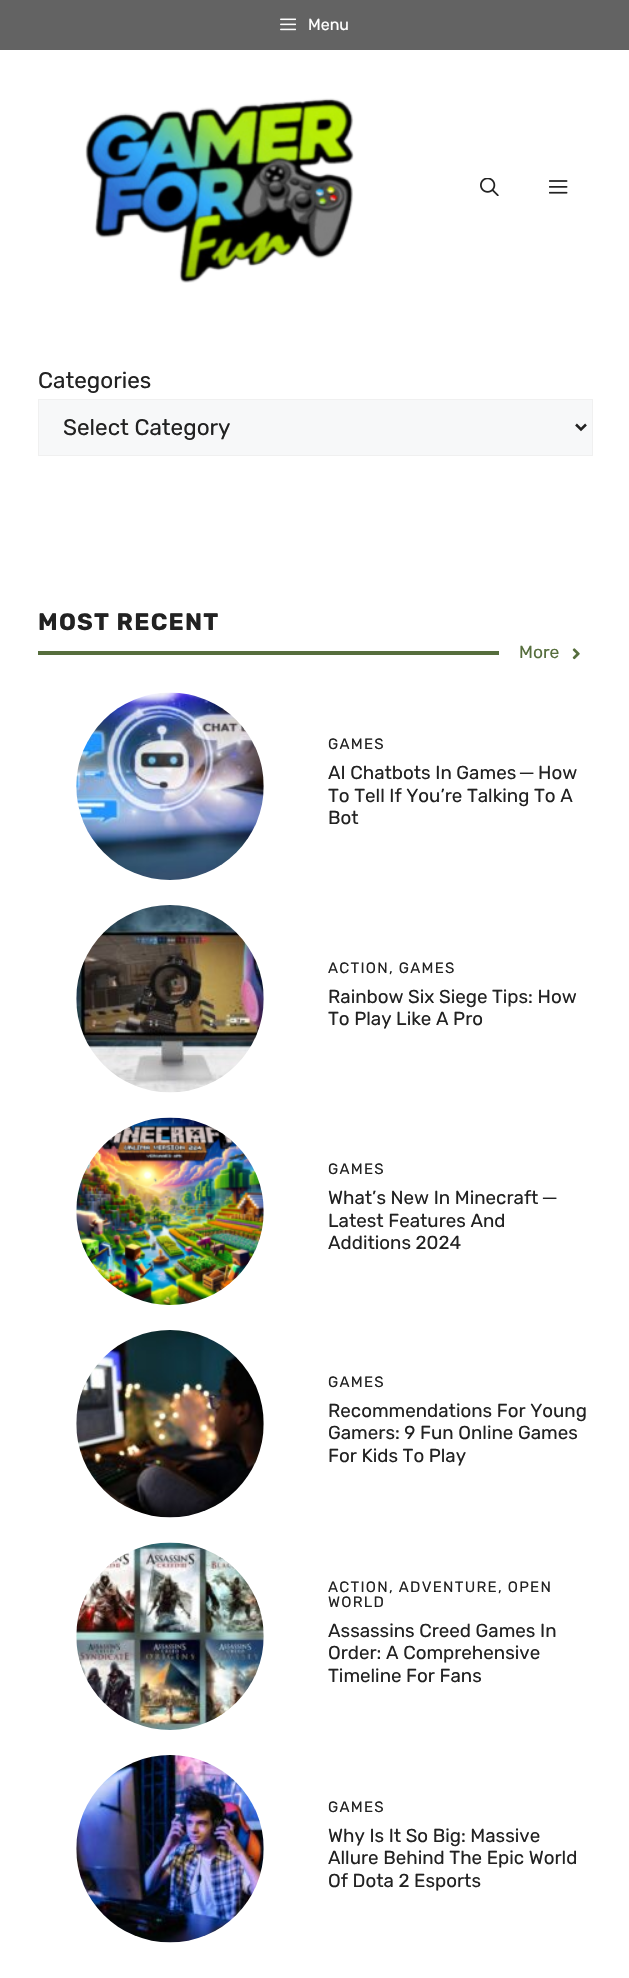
void draw(SkCanvas* canvas) {
	SkPaint paint;
	paint.setAntiAlias(true);
	auto spacedText = [&](const char* s, float x, float y, const SkFont& font, const SkPaint& ink, float letter, float word) {
		std::vector<SkGlyphID> glyphs(font.countText(s, strlen(s), SkTextEncoding::kUTF8));
		std::vector<float> xs(glyphs.size());
		font.textToGlyphs(s, strlen(s), SkTextEncoding::kUTF8, glyphs);
		font.getXPos(glyphs, xs, x);
		float extra = 0;
		for (size_t i = 0; i < glyphs.size(); i++) {
			xs[i] += extra;
			extra += letter + word * (glyphs[i] == font.unicharToGlyph(' '));
		}
		canvas->drawTextBlob(SkTextBlob::MakeFromPosHGlyphs(glyphs, xs, y, font), 0, 0, ink);
	};
	auto svgPath = [&](const char* data, bool evenOdd = false) {
		SkPath result = *SkParsePath::FromSVGString(data);
		if (evenOdd) result.setFillType(SkPathFillType::kEvenOdd);
		return result;
	};
	canvas->clear(0xffffffff);
	paint.setColor(0xff636363);
	canvas->drawRect(SkRect::MakeXYWH(0, 0, 629, 50), paint);
	canvas->drawImageRect(SkImages::DeferredFromEncodedData(SkData::MakeFromFileName("img1.png")), SkRect::MakeXYWH(280, 18, 16, 13), SkSamplingOptions());
	SkFont f1(fontMgr->matchFamilyStyle("Rubik", SkFontStyle::Normal()), 16);
	f1.setSubpixel(true);
	paint.setColor(0xffffffff);
	canvas->drawString("Menu", 308, 30, f1, paint);
	canvas->drawImageRect(SkImages::DeferredFromEncodedData(SkData::MakeFromFileName("img2.png")), SkRect::MakeXYWH(85, 98, 269, 185), SkSamplingOptions());
	canvas->drawImageRect(SkImages::DeferredFromEncodedData(SkData::MakeFromFileName("img3.png")), SkRect::MakeXYWH(480, 178, 19, 18), SkSamplingOptions());
	canvas->drawImageRect(SkImages::DeferredFromEncodedData(SkData::MakeFromFileName("img4.png")), SkRect::MakeXYWH(549, 180, 19, 14), SkSamplingOptions());
	SkFont f2(fontMgr->matchFamilyStyle("Rubik", SkFontStyle::Normal()), 22.5);
	f2.setSubpixel(true);
	paint.setColor(0xff222222);
	canvas->drawString("Categories", 38, 388, f2, paint);
	paint.setColor(0xfff7f8f9);
	canvas->drawRect(SkRect::MakeXYWH(38.5, 399.5, 554, 56), paint);
	paint.setStroke(true);
	paint.setStrokeWidth(1);
	paint.setColor(0xfff0f0f0);
	canvas->drawRect(SkRect::MakeXYWH(38.5, 399.5, 554, 56), paint);
	paint.setStrokeWidth(2.5);
	paint.setColor(0xff222222);
	canvas->drawPath(svgPath("M576 424.5L581 429.5L586 424.5"), paint);
	paint.setStroke(false);
	canvas->drawString("Select Category", 63, 435, f2, paint);
	SkFont f3(fontMgr->matchFamilyStyle("Rubik", SkFontStyle::Bold()), 23.75);
	f3.setSubpixel(true);
	spacedText("MOST RECENT", 38, 630, f3, paint, 1.25, 0);
	paint.setColor(0xff566e3d);
	canvas->drawRect(SkRect::MakeXYWH(38, 651, 461, 4), paint);
	SkFont f4(fontMgr->matchFamilyStyle("Rubik", SkFontStyle::Normal()), 17.5);
	f4.setSubpixel(true);
	canvas->drawString("More", 519, 658, f4, paint);
	canvas->drawImageRect(SkImages::DeferredFromEncodedData(SkData::MakeFromFileName("img5.png")), SkRect::MakeXYWH(572, 648, 8, 12), SkSamplingOptions());
	canvas->drawImageRect(SkImages::DeferredFromEncodedData(SkData::MakeFromFileName("img6.png")), SkRect::MakeXYWH(76, 692, 188, 188), SkSamplingOptions());
	SkFont f5(fontMgr->matchFamilyStyle("Rubik", SkFontStyle::Normal()), 15);
	f5.setSubpixel(true);
	paint.setColor(0xff222222);
	spacedText("GAMES", 328, 749, f5, paint, 1.25, 0);
	SkFont f6(fontMgr->matchFamilyStyle("Rubik", SkFontStyle::Normal()), 18.75);
	f6.setSubpixel(true);
	canvas->drawString("AI Chatbots In Games", 328, 779, f6, paint);
	SkFont f7(fontMgr->matchFamilyStyle("Liberation Sans", SkFontStyle::Normal()), 18.75);
	f7.setSubpixel(true);
	canvas->drawString("─", 520, 779, f7, paint);
	canvas->drawString("How", 538, 779, f6, paint);
	canvas->drawString("To Tell If You’re Talking To A", 328, 802, f6, paint);
	canvas->drawString("Bot", 328, 824, f6, paint);
	canvas->drawImageRect(SkImages::DeferredFromEncodedData(SkData::MakeFromFileName("img7.png")), SkRect::MakeXYWH(76, 905, 188, 188), SkSamplingOptions());
	spacedText("ACTION, GAMES", 328, 973, f5, paint, 1.25, 0);
	canvas->drawString("Rainbow Six Siege Tips: How", 328, 1003, f6, paint);
	canvas->drawString("To Play Like A Pro", 328, 1025, f6, paint);
	canvas->drawImageRect(SkImages::DeferredFromEncodedData(SkData::MakeFromFileName("img8.png")), SkRect::MakeXYWH(76, 1117, 188, 188), SkSamplingOptions());
	spacedText("GAMES", 328, 1174, f5, paint, 1.25, 0);
	canvas->drawString("What’s New In Minecraft", 328, 1204, f6, paint);
	canvas->drawString("─", 543, 1204, f7, paint);
	canvas->drawString("Latest Features And", 328, 1227, f6, paint);
	canvas->drawString("Additions 2024", 328, 1249, f6, paint);
	canvas->drawImageRect(SkImages::DeferredFromEncodedData(SkData::MakeFromFileName("img9.png")), SkRect::MakeXYWH(76, 1330, 188, 188), SkSamplingOptions());
	spacedText("GAMES", 328, 1387, f5, paint, 1.25, 0);
	canvas->drawString("Recommendations For Young", 328, 1417, f6, paint);
	canvas->drawString("Gamers: 9 Fun Online Games", 328, 1439, f6, paint);
	canvas->drawString("For Kids To Play", 328, 1462, f6, paint);
	canvas->drawImageRect(SkImages::DeferredFromEncodedData(SkData::MakeFromFileName("img10.png")), SkRect::MakeXYWH(76, 1542, 188, 188), SkSamplingOptions());
	spacedText("ACTION, ADVENTURE, OPEN", 328, 1592, f5, paint, 1.25, 0);
	spacedText("WORLD", 328, 1607, f5, paint, 1.25, 0);
	canvas->drawString("Assassins Creed Games In", 328, 1637, f6, paint);
	canvas->drawString("Order: A Comprehensive", 328, 1659, f6, paint);
	canvas->drawString("Timeline For Fans", 328, 1682, f6, paint);
	canvas->drawImageRect(SkImages::DeferredFromEncodedData(SkData::MakeFromFileName("img11.png")), SkRect::MakeXYWH(76, 1755, 188, 188), SkSamplingOptions());
	spacedText("GAMES", 328, 1812, f5, paint, 1.25, 0);
	canvas->drawString("Why Is It So Big: Massive", 328, 1842, f6, paint);
	canvas->drawString("Allure Behind The Epic World", 328, 1864, f6, paint);
	canvas->drawString("Of Dota 2 Esports", 328, 1887, f6, paint);
}
